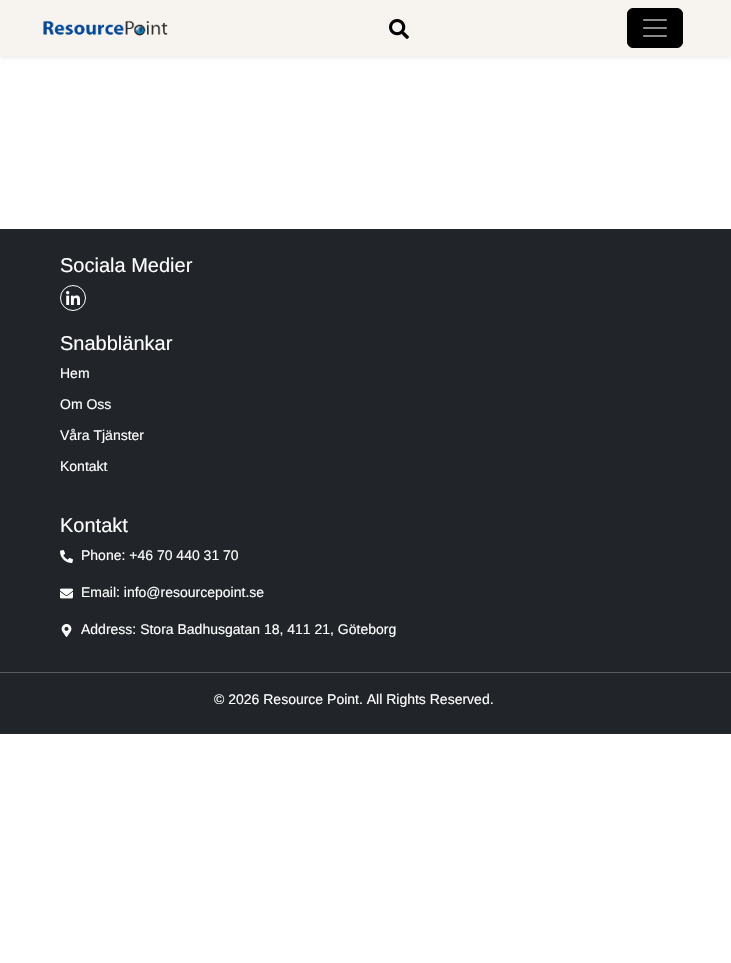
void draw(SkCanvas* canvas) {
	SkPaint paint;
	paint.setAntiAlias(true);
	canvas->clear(0xffffffff);
	paint.setColor(0x12000000);
	paint.setMaskFilter(SkMaskFilter::MakeBlur(kNormal_SkBlurStyle, 2));
	canvas->drawRect(SkRect::MakeXYWH(0, 2, 731, 56), paint);
	paint.setMaskFilter(nullptr);
	paint.setColor(0xfff7f4f0);
	canvas->drawRect(SkRect::MakeXYWH(0, 0, 731, 56), paint);
	canvas->drawImageRect(SkImages::DeferredFromEncodedData(SkData::MakeFromFileName("img1.png")), SkRect::MakeXYWH(43, 20, 125, 16), SkSamplingOptions());
	canvas->drawImageRect(SkImages::DeferredFromEncodedData(SkData::MakeFromFileName("img2.png")), SkRect::MakeXYWH(389, 19, 20, 20), SkSamplingOptions());
	paint.setColor(0xff000000);
	canvas->drawRoundRect(SkRect::MakeXYWH(627.5, 8.5, 55, 39), 5.5, 5.5, paint);
	paint.setStroke(true);
	paint.setStrokeWidth(1);
	canvas->drawRoundRect(SkRect::MakeXYWH(627.5, 8.5, 55, 39), 5.5, 5.5, paint);
	canvas->drawImageRect(SkImages::DeferredFromEncodedData(SkData::MakeFromFileName("img3.png")), SkRect::MakeXYWH(643, 19, 24, 18), SkSamplingOptions());
	paint.setStroke(false);
	paint.setColor(0xff212529);
	canvas->drawRect(SkRect::MakeXYWH(0, 229, 731, 505), paint);
	SkFont f1(fontMgr->matchFamilyStyle("Liberation Sans", SkFontStyle::Normal()), 20);
	f1.setSubpixel(true);
	paint.setColor(0xffffffff);
	canvas->drawString("Sociala Medier", 60, 272, f1, paint);
	paint.setStroke(true);
	canvas->drawCircle(73, 298, 12.5, paint);
	canvas->drawImageRect(SkImages::DeferredFromEncodedData(SkData::MakeFromFileName("img4.png")), SkRect::MakeXYWH(66, 291, 14, 14), SkSamplingOptions());
	paint.setStroke(false);
	canvas->drawString("Snabblänkar", 60, 350, f1, paint);
	SkFont f2(fontMgr->matchFamilyStyle("Liberation Sans", SkFontStyle::Normal()), 14);
	f2.setSubpixel(true);
	canvas->drawString("Hem", 60, 378, f2, paint);
	canvas->drawString("Om Oss", 60, 409, f2, paint);
	canvas->drawString("Våra Tjänster", 60, 440, f2, paint);
	canvas->drawString("Kontakt", 60, 471, f2, paint);
	canvas->drawString("Kontakt", 60, 532, f1, paint);
	canvas->drawImageRect(SkImages::DeferredFromEncodedData(SkData::MakeFromFileName("img5.png")), SkRect::MakeXYWH(60, 550, 13, 13), SkSamplingOptions());
	canvas->drawString("Phone: +46 70 440 31 70", 81, 560, f2, paint);
	canvas->drawImageRect(SkImages::DeferredFromEncodedData(SkData::MakeFromFileName("img6.png")), SkRect::MakeXYWH(60, 588, 13, 11), SkSamplingOptions());
	canvas->drawString("Email: info@resourcepoint.se", 81, 597, f2, paint);
	canvas->drawImageRect(SkImages::DeferredFromEncodedData(SkData::MakeFromFileName("img7.png")), SkRect::MakeXYWH(61, 624, 11, 13), SkSamplingOptions());
	canvas->drawString("Address: Stora Badhusgatan 18, 411 21, Göteborg", 81, 634, f2, paint);
	paint.setColor(0xff595c5f);
	canvas->drawRect(SkRect::MakeXYWH(0, 672, 731, 1), paint);
	paint.setColor(0xffffffff);
	canvas->drawString("© 2026 Resource Point. All Rights Reserved.", 214, 704, f2, paint);
}
